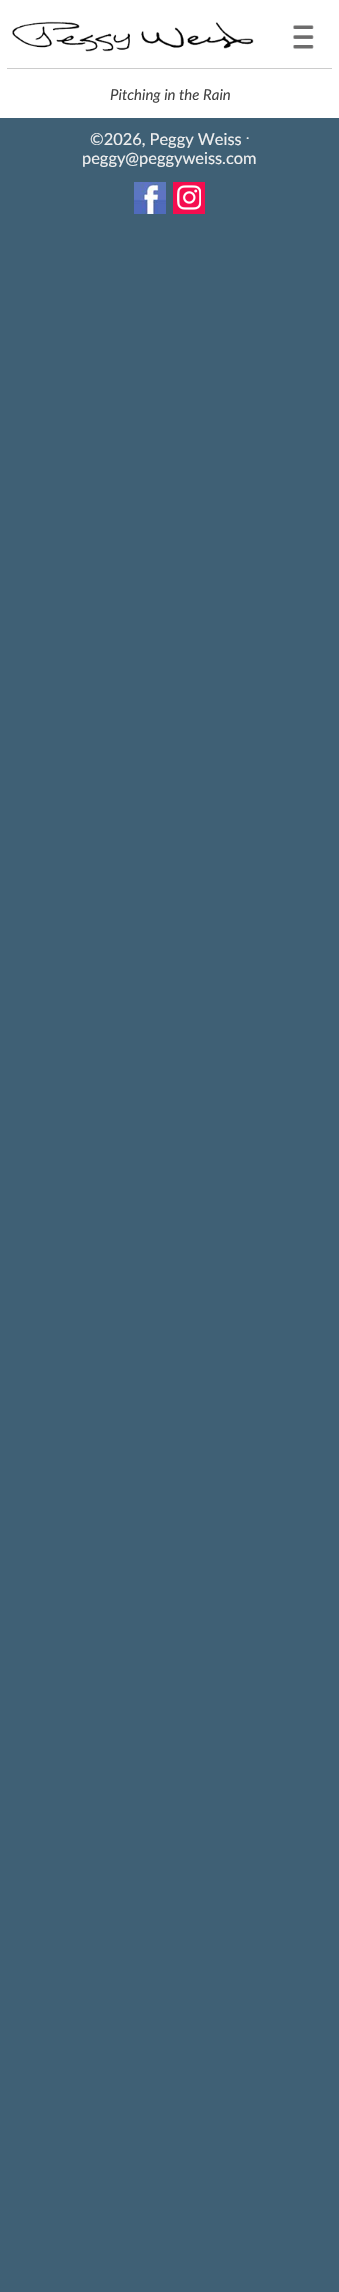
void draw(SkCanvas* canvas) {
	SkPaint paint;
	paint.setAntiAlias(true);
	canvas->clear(0xff3f6075);
	paint.setColor(0xffffffff);
	canvas->drawRect(SkRect::MakeXYWH(0, 0, 339, 118), paint);
	paint.setColor(0xffcccccc);
	canvas->drawRect(SkRect::MakeXYWH(7, 68, 325, 1), paint);
	canvas->drawImageRect(SkImages::DeferredFromEncodedData(SkData::MakeFromFileName("img1.png")), SkRect::MakeXYWH(12, 21, 242, 31), SkSamplingOptions());
	canvas->drawImageRect(SkImages::DeferredFromEncodedData(SkData::MakeFromFileName("img2.png")), SkRect::MakeXYWH(293, 25, 21, 24), SkSamplingOptions());
	SkFont f1(fontMgr->matchFamilyStyle("Lato", SkFontStyle::Italic()), 15);
	f1.setSubpixel(true);
	paint.setColor(0xff444444);
	canvas->drawString("Pitching in the Rain", 110, 100, f1, paint);
	SkFont f2(fontMgr->matchFamilyStyle("Lato", SkFontStyle::Normal()), 16.4);
	f2.setSubpixel(true);
	paint.setColor(0xffefefef);
	canvas->drawString("©2026, Peggy Weiss", 90, 145, f2, paint);
	SkFont f3(fontMgr->matchFamilyStyle("Lato", SkFontStyle::Normal()), 14);
	f3.setSubpixel(true);
	canvas->drawString(".", 246, 139, f3, paint);
	canvas->drawString("peggy@peggyweiss.com", 82, 164, f2, paint);
	canvas->drawImageRect(SkImages::DeferredFromEncodedData(SkData::MakeFromFileName("img3.png")), SkRect::MakeXYWH(134, 182, 32, 32), SkSamplingOptions());
	canvas->drawImageRect(SkImages::DeferredFromEncodedData(SkData::MakeFromFileName("img4.png")), SkRect::MakeXYWH(173, 182, 32, 32), SkSamplingOptions());
}
